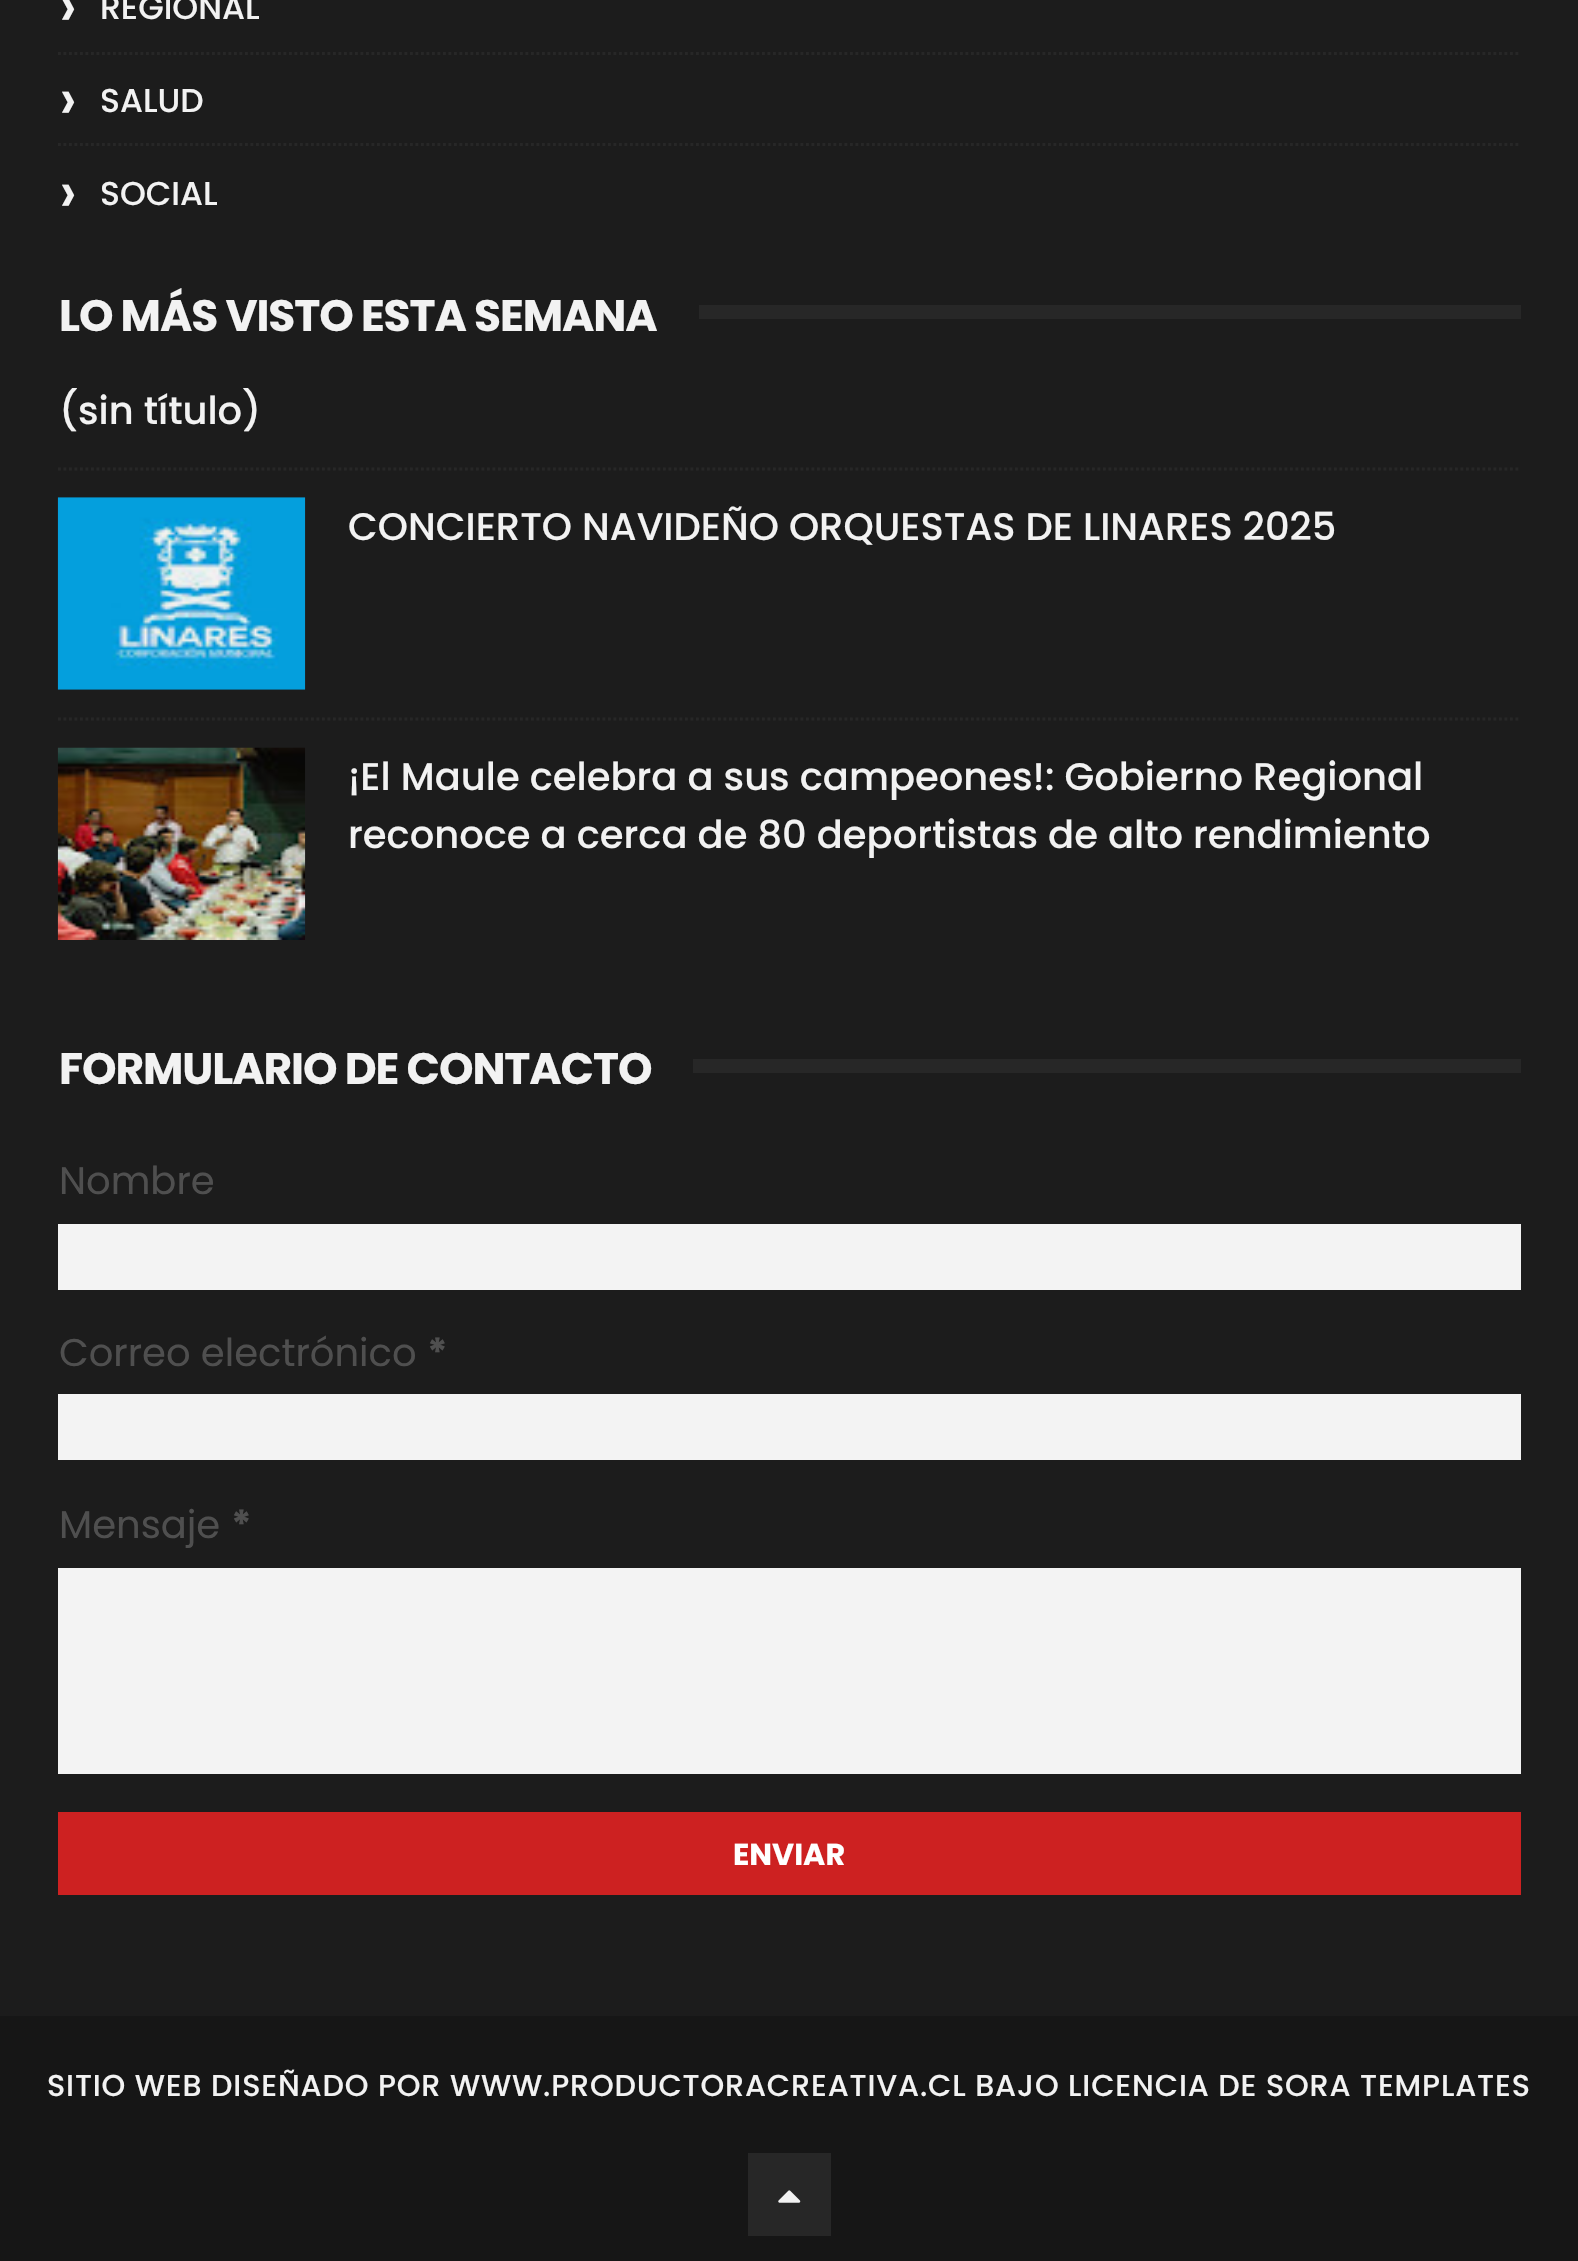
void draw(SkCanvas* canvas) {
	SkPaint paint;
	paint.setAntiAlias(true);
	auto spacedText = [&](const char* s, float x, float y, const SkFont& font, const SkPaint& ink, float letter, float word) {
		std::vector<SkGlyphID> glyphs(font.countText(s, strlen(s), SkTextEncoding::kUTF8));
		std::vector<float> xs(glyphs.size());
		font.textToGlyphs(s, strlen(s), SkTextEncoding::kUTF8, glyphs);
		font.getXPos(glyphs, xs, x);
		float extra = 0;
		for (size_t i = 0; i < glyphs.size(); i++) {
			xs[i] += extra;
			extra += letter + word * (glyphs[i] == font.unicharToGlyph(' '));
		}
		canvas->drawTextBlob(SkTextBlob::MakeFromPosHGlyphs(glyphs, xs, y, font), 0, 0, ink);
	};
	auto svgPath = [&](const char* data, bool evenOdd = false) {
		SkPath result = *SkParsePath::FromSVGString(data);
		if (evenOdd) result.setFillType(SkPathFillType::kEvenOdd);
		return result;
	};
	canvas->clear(0xff1c1c1c);
	SkFont f1(fontMgr->matchFamilyStyle("Poppins", SkFontStyle(500, SkFontStyle::kNormal_Width, SkFontStyle::kUpright_Slant)), 60);
	f1.setSubpixel(true);
	paint.setColor(0xfff2f2f2);
	canvas->drawString("›", 59, 27, f1, paint);
	SkFont f2(fontMgr->matchFamilyStyle("Poppins", SkFontStyle(500, SkFontStyle::kNormal_Width, SkFontStyle::kUpright_Slant)), 33);
	f2.setSubpixel(true);
	canvas->drawString("REGIONAL", 100, 19, f2, paint);
	paint.setStroke(true);
	paint.setStrokeWidth(2.8);
	paint.setColor(0xff272727);
	paint.setPathEffect(SkDashPathEffect::Make({{2.75f, 2.75f}}, 0));
	canvas->drawPath(svgPath("M58 53.5H1521"), paint);
	paint.setPathEffect(nullptr);
	paint.setStroke(false);
	paint.setColor(0xfff2f2f2);
	canvas->drawString("›", 59, 120, f1, paint);
	canvas->drawString("SALUD", 100, 112, f2, paint);
	paint.setStroke(true);
	paint.setColor(0xff272727);
	paint.setPathEffect(SkDashPathEffect::Make({{2.75f, 2.75f}}, 0));
	canvas->drawPath(svgPath("M58 144.5H1521"), paint);
	paint.setPathEffect(nullptr);
	paint.setStroke(false);
	paint.setColor(0xfff2f2f2);
	canvas->drawString("›", 59, 213, f1, paint);
	canvas->drawString("SOCIAL", 100, 205, f2, paint);
	SkFont f3(fontMgr->matchFamilyStyle("Poppins", SkFontStyle::Bold()), 44);
	f3.setSubpixel(true);
	spacedText("LO MÁS VISTO ESTA SEMANA", 59, 331, f3, paint, -1.1, 0);
	paint.setColor(0xff272727);
	canvas->drawRect(SkRect::MakeXYWH(699, 305, 822, 14), paint);
	SkFont f4(fontMgr->matchFamilyStyle("Poppins", SkFontStyle(500, SkFontStyle::kNormal_Width, SkFontStyle::kUpright_Slant)), 38.5);
	f4.setSubpixel(true);
	paint.setColor(0xfff2f2f2);
	canvas->drawString("(sin título)", 59, 424, f4, paint);
	paint.setStroke(true);
	paint.setColor(0xff272727);
	paint.setPathEffect(SkDashPathEffect::Make({{2.75f, 2.75f}}, 0));
	canvas->drawPath(svgPath("M58 469H1521"), paint);
	paint.setPathEffect(nullptr);
	canvas->drawImageRect(SkImages::DeferredFromEncodedData(SkData::MakeFromFileName("img1.png")), SkRect::MakeXYWH(57, 497, 249, 193), SkSamplingOptions());
	paint.setStroke(false);
	paint.setColor(0xfff2f2f2);
	canvas->drawString("CONCIERTO NAVIDEÑO ORQUESTAS DE LINARES 2025", 348, 540, f4, paint);
	paint.setStroke(true);
	paint.setColor(0xff272727);
	paint.setPathEffect(SkDashPathEffect::Make({{2.75f, 2.75f}}, 0));
	canvas->drawPath(svgPath("M58 719H1521"), paint);
	paint.setPathEffect(nullptr);
	canvas->drawImageRect(SkImages::DeferredFromEncodedData(SkData::MakeFromFileName("img2.png")), SkRect::MakeXYWH(57, 747, 249, 193), SkSamplingOptions());
	paint.setStroke(false);
	paint.setColor(0xfff2f2f2);
	canvas->drawString("¡El Maule celebra a sus campeones!: Gobierno Regional", 348, 790, f4, paint);
	canvas->drawString("reconoce a cerca de 80 deportistas de alto rendimiento", 348, 848, f4, paint);
	spacedText("FORMULARIO DE CONTACTO", 59, 1084, f3, paint, -1.1, 0);
	paint.setColor(0xff272727);
	canvas->drawRect(SkRect::MakeXYWH(693, 1059, 828, 14), paint);
	SkFont f5(fontMgr->matchFamilyStyle("Poppins", SkFontStyle::Normal()), 38.5);
	f5.setSubpixel(true);
	paint.setColor(0xff4f4f4f);
	canvas->drawString("Nombre", 59, 1194, f5, paint);
	paint.setColor(0xfff3f3f3);
	canvas->drawRect(SkRect::MakeXYWH(58, 1224, 1463, 66), paint);
	paint.setColor(0xff4f4f4f);
	canvas->drawString("Correo electrónico", 59, 1366, f5, paint);
	SkFont f6(fontMgr->matchFamilyStyle("Poppins", SkFontStyle::Bold()), 38.5);
	f6.setSubpixel(true);
	canvas->drawString("*", 427, 1366, f6, paint);
	paint.setColor(0xfff3f3f3);
	canvas->drawRect(SkRect::MakeXYWH(58, 1394, 1463, 66), paint);
	paint.setColor(0xff4f4f4f);
	canvas->drawString("Mensaje", 59, 1538, f5, paint);
	canvas->drawString("*", 231, 1538, f6, paint);
	paint.setColor(0xfff3f3f3);
	canvas->drawRect(SkRect::MakeXYWH(58, 1568, 1463, 206), paint);
	paint.setColor(0xffcd2121);
	canvas->drawRect(SkRect::MakeXYWH(58, 1812, 1463, 83), paint);
	SkFont f7(fontMgr->matchFamilyStyle("Poppins", SkFontStyle::Bold()), 30.25);
	f7.setSubpixel(true);
	paint.setColor(0xffffffff);
	canvas->drawString("ENVIAR", 733, 1865, f7, paint);
	paint.setColor(0xff161616);
	canvas->drawRect(SkRect::MakeXYWH(0, 2016, 1578, 245), paint);
	SkFont f8(fontMgr->matchFamilyStyle("Poppins", SkFontStyle(500, SkFontStyle::kNormal_Width, SkFontStyle::kUpright_Slant)), 30.25);
	f8.setSubpixel(true);
	paint.setColor(0xfff2f2f2);
	spacedText("SITIO WEB DISEÑADO POR WWW.PRODUCTORACREATIVA.CL BAJO LICENCIA DE SORA TEMPLATES", 47, 2096, f8, paint, 0.82, 0);
	paint.setColor(0xff272727);
	canvas->drawRect(SkRect::MakeXYWH(748, 2153, 83, 83), paint);
	canvas->drawImageRect(SkImages::DeferredFromEncodedData(SkData::MakeFromFileName("img3.png")), SkRect::MakeXYWH(778, 2190, 23, 13), SkSamplingOptions());
}
